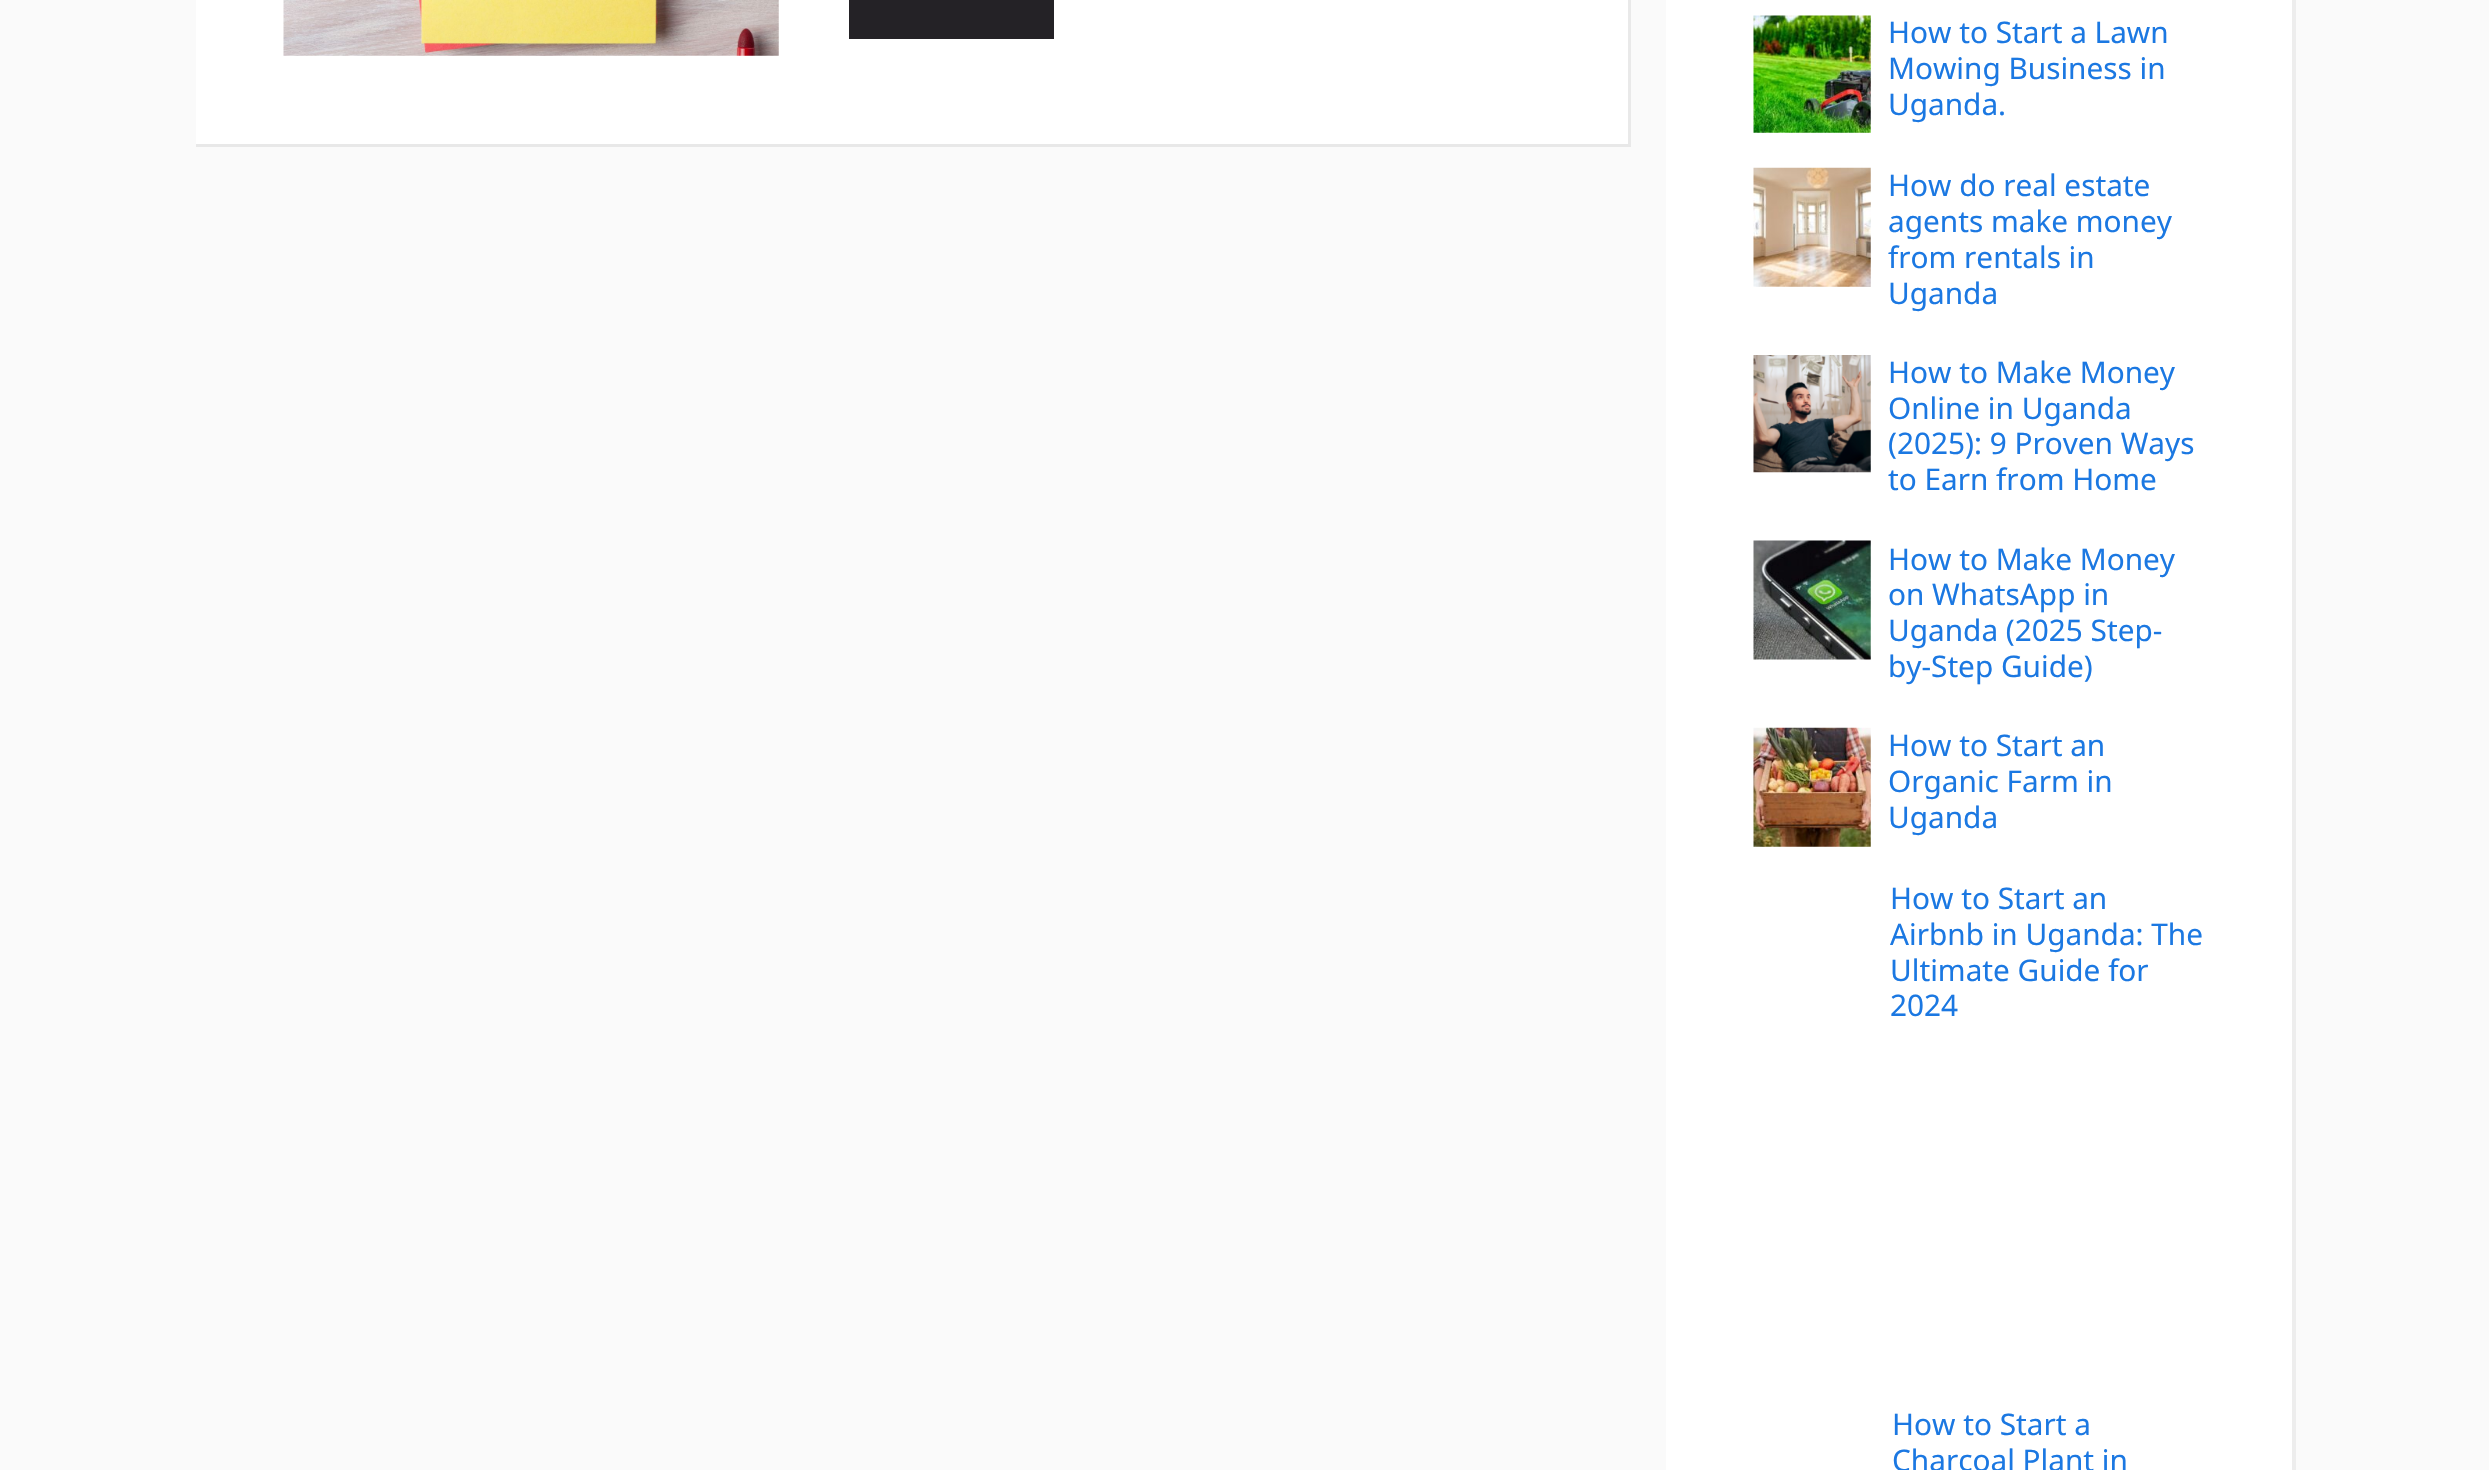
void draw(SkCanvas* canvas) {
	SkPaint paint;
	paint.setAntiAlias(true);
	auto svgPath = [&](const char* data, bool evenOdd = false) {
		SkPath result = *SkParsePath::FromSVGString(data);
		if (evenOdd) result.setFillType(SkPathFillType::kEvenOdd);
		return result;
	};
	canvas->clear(0xfffafafa);
	paint.setColor(0xffe9e9e9);
	canvas->drawPath(svgPath("M1631-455V147L1628 144V-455Z"), paint);
	paint.setColor(0x12000000);
	canvas->drawPath(svgPath("M1631 147H196V144H1628Z"), paint);
	paint.setColor(0xffffffff);
	canvas->drawRect(SkRect::MakeXYWH(196, 0, 1432, 144), paint);
	canvas->drawImageRect(SkImages::DeferredFromEncodedData(SkData::MakeFromFileName("img1.png")), SkRect::MakeXYWH(283, 0, 496, 56), SkSamplingOptions());
	paint.setColor(0xff242226);
	canvas->drawRect(SkRect::MakeXYWH(849, 0, 205, 39), paint);
	paint.setColor(0xffffffff);
	canvas->drawRect(SkRect::MakeXYWH(1666, 0, 626, 1470), paint);
	paint.setColor(0xffededed);
	canvas->drawPath(svgPath("M2296-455V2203L2292 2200V-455Z"), paint);
	canvas->drawImageRect(SkImages::DeferredFromEncodedData(SkData::MakeFromFileName("img2.png")), SkRect::MakeXYWH(1753, 15, 118, 118), SkSamplingOptions());
	SkFont f1(fontMgr->matchFamilyStyle("Noto Sans", SkFontStyle::Normal()), 29.75);
	f1.setSubpixel(true);
	paint.setColor(0xff1b78e2);
	canvas->drawString("How to Start a Lawn", 1888, 43, f1, paint);
	canvas->drawString("Mowing Business in", 1888, 79, f1, paint);
	canvas->drawString("Uganda.", 1888, 115, f1, paint);
	canvas->drawImageRect(SkImages::DeferredFromEncodedData(SkData::MakeFromFileName("img3.png")), SkRect::MakeXYWH(1753, 167, 118, 120), SkSamplingOptions());
	canvas->drawString("How do real estate", 1888, 196, f1, paint);
	canvas->drawString("agents make money", 1888, 232, f1, paint);
	canvas->drawString("from rentals in", 1888, 268, f1, paint);
	canvas->drawString("Uganda", 1888, 304, f1, paint);
	canvas->drawImageRect(SkImages::DeferredFromEncodedData(SkData::MakeFromFileName("img4.png")), SkRect::MakeXYWH(1753, 355, 118, 118), SkSamplingOptions());
	canvas->drawString("How to Make Money", 1888, 383, f1, paint);
	canvas->drawString("Online in Uganda", 1888, 419, f1, paint);
	canvas->drawString("(2025): 9 Proven Ways", 1888, 454, f1, paint);
	canvas->drawString("to Earn from Home", 1888, 490, f1, paint);
	canvas->drawImageRect(SkImages::DeferredFromEncodedData(SkData::MakeFromFileName("img5.png")), SkRect::MakeXYWH(1753, 540, 118, 120), SkSamplingOptions());
	canvas->drawString("How to Make Money", 1888, 570, f1, paint);
	canvas->drawString("on WhatsApp in", 1888, 605, f1, paint);
	canvas->drawString("Uganda (2025 Step-", 1888, 641, f1, paint);
	canvas->drawString("by-Step Guide)", 1888, 677, f1, paint);
	canvas->drawImageRect(SkImages::DeferredFromEncodedData(SkData::MakeFromFileName("img6.png")), SkRect::MakeXYWH(1753, 727, 118, 120), SkSamplingOptions());
	canvas->drawString("How to Start an", 1888, 756, f1, paint);
	canvas->drawString("Organic Farm in", 1888, 792, f1, paint);
	canvas->drawString("Uganda", 1888, 828, f1, paint);
	canvas->drawString("How to Start an", 1890, 909, f1, paint);
	canvas->drawString("Airbnb in Uganda: The", 1890, 945, f1, paint);
	canvas->drawString("Ultimate Guide for", 1890, 981, f1, paint);
	canvas->drawString("2024", 1890, 1016, f1, paint);
	canvas->drawString("How to Start a", 1892, 1435, f1, paint);
	canvas->drawString("Charcoal Plant in", 1892, 1471, f1, paint);
}
